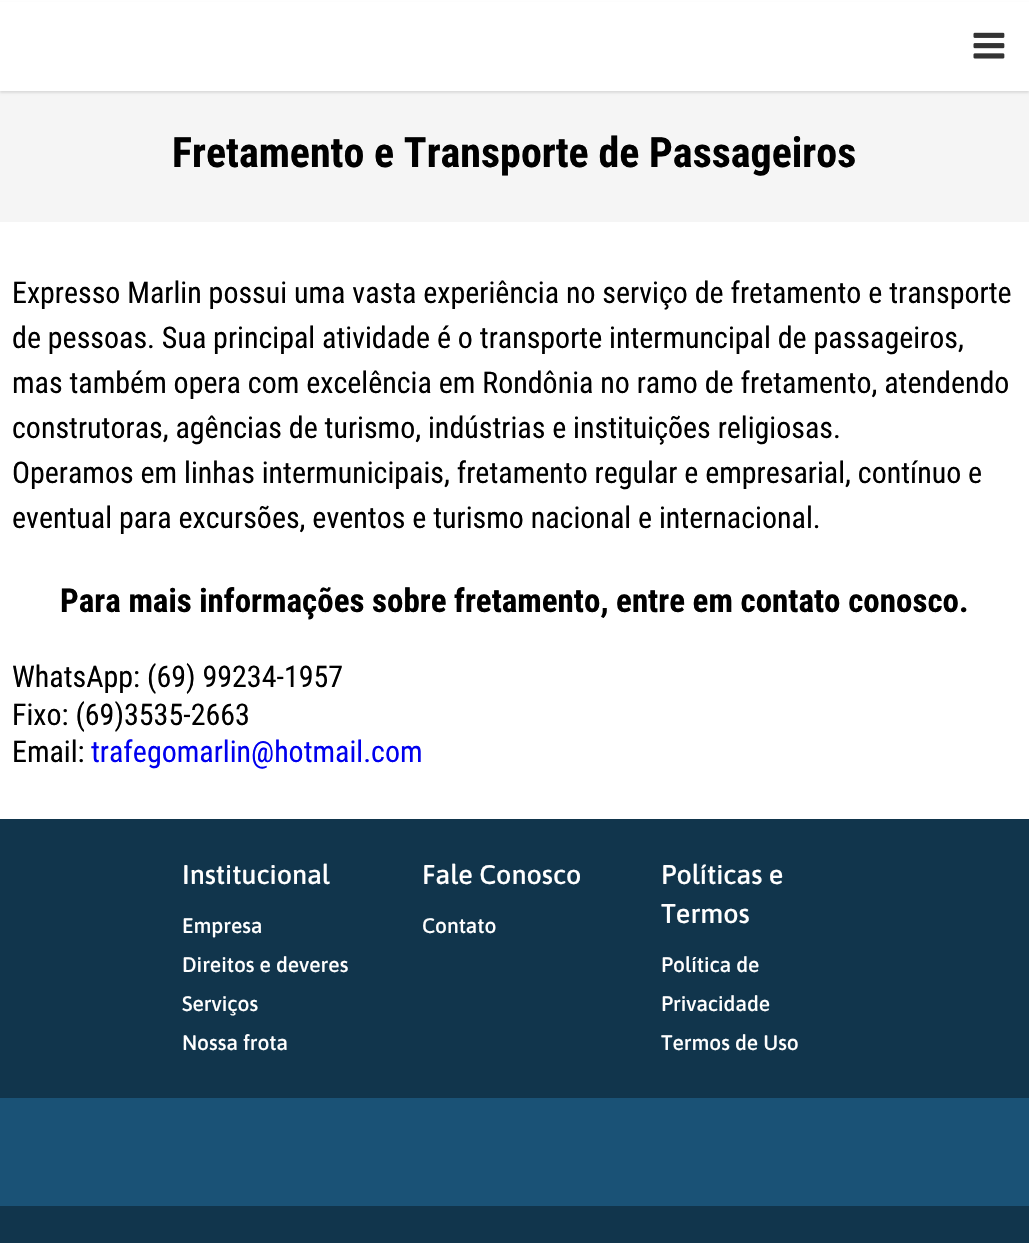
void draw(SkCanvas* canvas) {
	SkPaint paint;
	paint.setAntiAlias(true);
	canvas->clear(0xffffffff);
	paint.setColor(0xfff5f5f5);
	canvas->drawRect(SkRect::MakeXYWH(0, 91, 1029, 131), paint);
	paint.setColor(0x1a000000);
	paint.setMaskFilter(SkMaskFilter::MakeBlur(kNormal_SkBlurStyle, 1));
	canvas->drawRect(SkRect::MakeXYWH(0, 3, 1029, 90), paint);
	paint.setMaskFilter(nullptr);
	paint.setColor(0xffffffff);
	canvas->drawRect(SkRect::MakeXYWH(0, 2, 1029, 89), paint);
	canvas->drawImageRect(SkImages::DeferredFromEncodedData(SkData::MakeFromFileName("img1.png")), SkRect::MakeXYWH(973, 32, 32, 27), SkSamplingOptions());
	SkFont f1(fontMgr->matchFamilyStyle("Roboto Condensed", SkFontStyle::Bold()), 42);
	f1.setSubpixel(true);
	paint.setColor(0xff000000);
	canvas->drawString("Fretamento e Transporte de Passageiros", 172, 167, f1, paint);
	SkFont f2(fontMgr->matchFamilyStyle("Roboto Condensed", SkFontStyle::Normal()), 30);
	f2.setSubpixel(true);
	canvas->drawString("Expresso Marlin possui uma vasta experiência no serviço de fretamento e transporte", 12, 303, f2, paint);
	canvas->drawString("de pessoas. Sua principal atividade é o transporte intermuncipal de passageiros,", 12, 348, f2, paint);
	canvas->drawString("mas também opera com excelência em Rondônia no ramo de fretamento, atendendo", 12, 393, f2, paint);
	canvas->drawString("construtoras, agências de turismo, indústrias e instituições religiosas.", 12, 438, f2, paint);
	canvas->drawString("Operamos em linhas intermunicipais, fretamento regular e empresarial, contínuo e", 12, 483, f2, paint);
	canvas->drawString("eventual para excursões, eventos e turismo nacional e internacional.", 12, 528, f2, paint);
	SkFont f3(fontMgr->matchFamilyStyle("Roboto Condensed", SkFontStyle::Bold()), 33);
	f3.setSubpixel(true);
	canvas->drawString("Para mais informações sobre fretamento, entre em contato conosco.", 60, 612, f3, paint);
	canvas->drawString("WhatsApp: (69) 99234-1957", 12, 687, f2, paint);
	canvas->drawString("Fixo: (69)3535-2663", 12, 725, f2, paint);
	canvas->drawString("Email:", 12, 762, f2, paint);
	paint.setColor(0xff0000ee);
	canvas->drawString("trafegomarlin@hotmail.com", 91, 762, f2, paint);
	paint.setColor(0xff11354c);
	canvas->drawRect(SkRect::MakeXYWH(0, 819, 1029, 424), paint);
	SkFont f4(fontMgr->matchFamilyStyle("Asap", SkFontStyle(500, SkFontStyle::kNormal_Width, SkFontStyle::kUpright_Slant)), 27);
	f4.setSubpixel(true);
	paint.setColor(0xffffffff);
	canvas->drawString("Institucional", 182, 884, f4, paint);
	SkFont f5(fontMgr->matchFamilyStyle("Asap", SkFontStyle(500, SkFontStyle::kNormal_Width, SkFontStyle::kUpright_Slant)), 21);
	f5.setSubpixel(true);
	canvas->drawString("Empresa", 182, 933, f5, paint);
	canvas->drawString("Direitos e deveres", 182, 972, f5, paint);
	canvas->drawString("Serviços", 182, 1011, f5, paint);
	canvas->drawString("Nossa frota", 182, 1050, f5, paint);
	canvas->drawString("Fale Conosco", 422, 884, f4, paint);
	canvas->drawString("Contato", 422, 933, f5, paint);
	canvas->drawString("Políticas e", 661, 884, f4, paint);
	canvas->drawString("Termos", 661, 923, f4, paint);
	canvas->drawString("Política de", 661, 972, f5, paint);
	canvas->drawString("Privacidade", 661, 1011, f5, paint);
	canvas->drawString("Termos de Uso", 661, 1050, f5, paint);
	paint.setColor(0xff1a5276);
	canvas->drawRect(SkRect::MakeXYWH(0, 1098, 1029, 108), paint);
}
